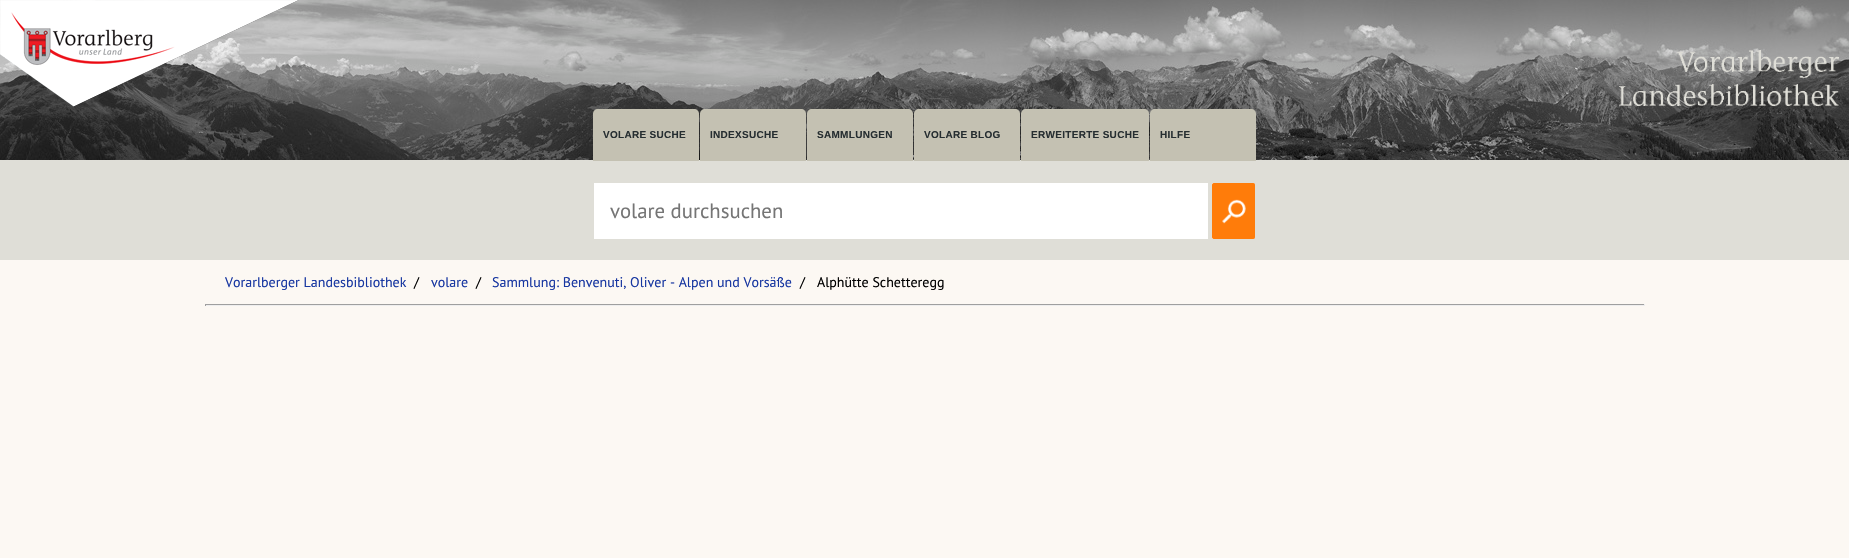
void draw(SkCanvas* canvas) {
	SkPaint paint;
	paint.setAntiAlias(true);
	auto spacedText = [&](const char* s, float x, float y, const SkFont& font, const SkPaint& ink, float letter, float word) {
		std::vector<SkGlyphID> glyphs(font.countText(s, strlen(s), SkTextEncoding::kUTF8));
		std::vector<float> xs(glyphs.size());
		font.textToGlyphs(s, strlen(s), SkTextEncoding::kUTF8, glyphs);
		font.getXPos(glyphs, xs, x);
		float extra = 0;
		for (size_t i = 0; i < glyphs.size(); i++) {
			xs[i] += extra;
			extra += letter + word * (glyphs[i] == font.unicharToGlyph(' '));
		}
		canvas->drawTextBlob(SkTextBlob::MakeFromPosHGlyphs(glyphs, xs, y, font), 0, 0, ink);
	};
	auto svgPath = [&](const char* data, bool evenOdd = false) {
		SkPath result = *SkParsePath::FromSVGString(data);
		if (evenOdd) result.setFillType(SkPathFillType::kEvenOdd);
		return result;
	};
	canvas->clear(0xfffcf8f3);
	canvas->drawImageRect(SkImages::DeferredFromEncodedData(SkData::MakeFromFileName("img1.png")), SkRect::MakeXYWH(0, 0, 1849, 160), SkSamplingOptions());
	canvas->drawImageRect(SkImages::DeferredFromEncodedData(SkData::MakeFromFileName("img2.png")), SkRect::MakeXYWH(0, 0, 299, 107), SkSamplingOptions());
	canvas->drawImageRect(SkImages::DeferredFromEncodedData(SkData::MakeFromFileName("img3.png")), SkRect::MakeXYWH(1619, 50, 220, 56), SkSamplingOptions());
	paint.setColor(0xffdfded7);
	canvas->drawRect(SkRect::MakeXYWH(0, 160, 1849, 100), paint);
	paint.setColor(0xffc4c1b2);
	canvas->drawPath(svgPath("M598 109H694C697 109 699 111 699 114V161H593V114C593 111 595 109 598 109Z"), paint);
	SkFont f1(fontMgr->matchFamilyStyle("Liberation Sans", SkFontStyle::Bold()), 10);
	f1.setSubpixel(true);
	paint.setColor(0xff262e31);
	spacedText("VOLARE SUCHE", 603, 138, f1, paint, 0.3, 0);
	paint.setColor(0xffc4c1b2);
	canvas->drawPath(svgPath("M705 109H801C804 109 806 111 806 114V161H700V114C700 111 702 109 705 109Z"), paint);
	paint.setColor(0xff262e31);
	spacedText("INDEXSUCHE", 710, 138, f1, paint, 0.3, 0);
	paint.setColor(0xffc4c1b2);
	canvas->drawPath(svgPath("M812 109H908C911 109 913 111 913 114V161H807V114C807 111 809 109 812 109Z"), paint);
	paint.setColor(0xff262e31);
	spacedText("SAMMLUNGEN", 817, 138, f1, paint, 0.3, 0);
	paint.setColor(0xffc4c1b2);
	canvas->drawPath(svgPath("M919 109H1015C1018 109 1020 111 1020 114V161H914V114C914 111 916 109 919 109Z"), paint);
	paint.setColor(0xff262e31);
	spacedText("VOLARE BLOG", 924, 138, f1, paint, 0.3, 0);
	paint.setColor(0xffc4c1b2);
	canvas->drawPath(svgPath("M1026 109H1144C1147 109 1149 111 1149 114V161H1021V114C1021 111 1023 109 1026 109Z"), paint);
	paint.setColor(0xff262e31);
	spacedText("ERWEITERTE SUCHE", 1031, 138, f1, paint, 0.3, 0);
	paint.setColor(0xffc4c1b2);
	canvas->drawPath(svgPath("M1155 109H1251C1254 109 1256 111 1256 114V161H1150V114C1150 111 1152 109 1155 109Z"), paint);
	paint.setColor(0xff262e31);
	spacedText("HILFE", 1160, 138, f1, paint, 0.3, 0);
	paint.setColor(0xffffffff);
	canvas->drawRect(SkRect::MakeXYWH(594, 183, 614, 56), paint);
	SkFont f2(fontMgr->matchFamilyStyle("PT Sans", SkFontStyle::Normal()), 20.75);
	f2.setSubpixel(true);
	paint.setColor(0xff757575);
	canvas->drawString("volare durchsuchen", 610, 218, f2, paint);
	canvas->drawImageRect(SkImages::DeferredFromEncodedData(SkData::MakeFromFileName("img4.png")), SkRect::MakeXYWH(1212, 183, 43, 56), SkSamplingOptions());
	SkFont f3(fontMgr->matchFamilyStyle("PT Sans", SkFontStyle::Normal()), 14);
	f3.setSubpixel(true);
	paint.setColor(0xff1837a1);
	canvas->drawString("Vorarlberger Landesbibliothek", 225, 287, f3, paint);
	paint.setColor(0xff000000);
	canvas->drawString("/", 414, 287, f3, paint);
	paint.setColor(0xff1837a1);
	canvas->drawString("volare", 431, 287, f3, paint);
	paint.setColor(0xff000000);
	canvas->drawString("/", 476, 287, f3, paint);
	paint.setColor(0xff1837a1);
	canvas->drawString("Sammlung: Benvenuti, Oliver - Alpen und Vorsäße", 492, 287, f3, paint);
	paint.setColor(0xff000000);
	canvas->drawString("/", 800, 287, f3, paint);
	canvas->drawString("Alphütte Schetteregg", 817, 287, f3, paint);
	paint.setColor(0xff9f9f9f);
	canvas->drawRect(SkRect::MakeXYWH(205, 304, 1440, 1), paint);
	paint.setColor(0xffeeeeee);
	canvas->drawRect(SkRect::MakeXYWH(1644, 304, 1, 2), paint);
	canvas->drawRect(SkRect::MakeXYWH(205, 305, 1440, 1), paint);
	paint.setColor(0xff9f9f9f);
	canvas->drawRect(SkRect::MakeXYWH(205, 304, 1, 2), paint);
}
